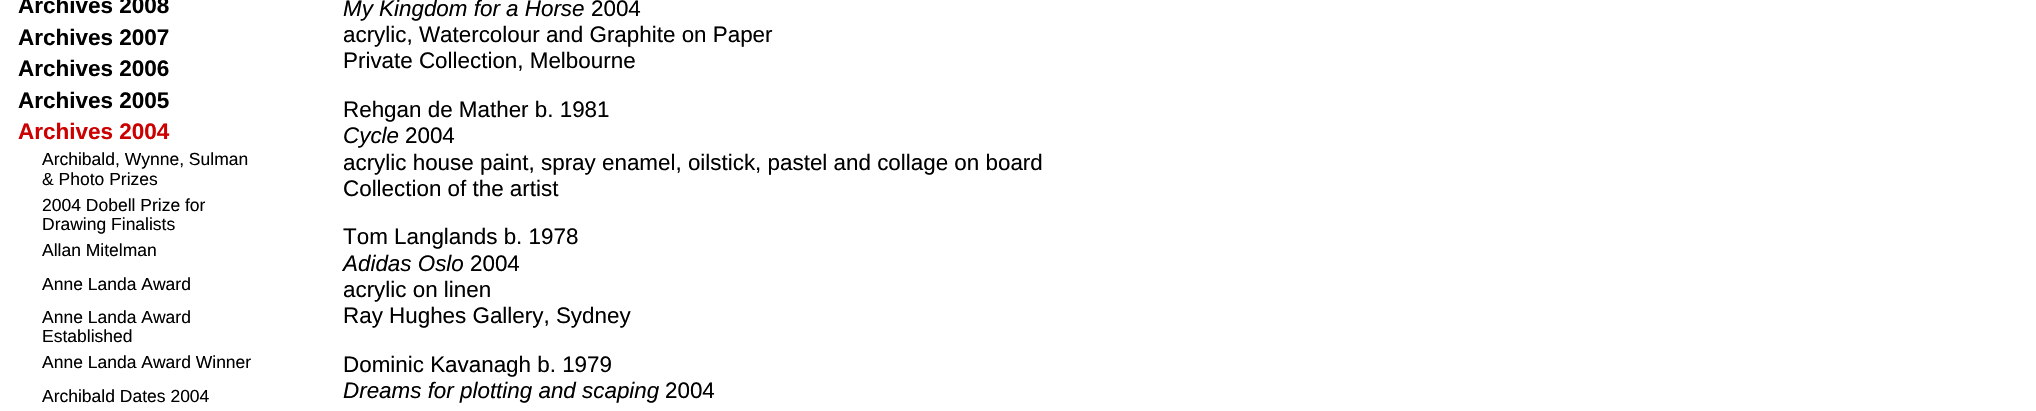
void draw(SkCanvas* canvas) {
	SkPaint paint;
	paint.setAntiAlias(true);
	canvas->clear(0xffffffff);
	SkFont f1(fontMgr->matchFamilyStyle("Liberation Sans", SkFontStyle::Bold()), 22.5);
	f1.setSubpixel(true);
	paint.setColor(0xff000000);
	canvas->drawString("Archives 2008", 18, 13, f1, paint);
	canvas->drawString("Archives 2007", 18, 45, f1, paint);
	canvas->drawString("Archives 2006", 18, 76, f1, paint);
	canvas->drawString("Archives 2005", 18, 108, f1, paint);
	paint.setColor(0xffcc0000);
	canvas->drawString("Archives 2004", 18, 139, f1, paint);
	SkFont f2(fontMgr->matchFamilyStyle("Liberation Sans", SkFontStyle::Normal()), 17.5);
	f2.setSubpixel(true);
	paint.setColor(0xff000000);
	canvas->drawString("Archibald, Wynne, Sulman", 42, 165, f2, paint);
	canvas->drawString("& Photo Prizes", 42, 185, f2, paint);
	canvas->drawString("2004 Dobell Prize for", 42, 211, f2, paint);
	canvas->drawString("Drawing Finalists", 42, 230, f2, paint);
	canvas->drawString("Allan Mitelman", 42, 256, f2, paint);
	canvas->drawString("Anne Landa Award", 42, 290, f2, paint);
	canvas->drawString("Anne Landa Award", 42, 323, f2, paint);
	canvas->drawString("Established", 42, 342, f2, paint);
	canvas->drawString("Anne Landa Award Winner", 42, 368, f2, paint);
	canvas->drawString("Archibald Dates 2004", 42, 402, f2, paint);
	SkFont f3(fontMgr->matchFamilyStyle("Liberation Sans", SkFontStyle::Italic()), 22.4);
	f3.setSubpixel(true);
	canvas->drawString("My Kingdom for a Horse", 343, 16, f3, paint);
	SkFont f4(fontMgr->matchFamilyStyle("Liberation Sans", SkFontStyle::Normal()), 22.4);
	f4.setSubpixel(true);
	canvas->drawString("2004", 591, 16, f4, paint);
	canvas->drawString("acrylic, Watercolour and Graphite on Paper", 343, 42, f4, paint);
	canvas->drawString("Private Collection, Melbourne", 343, 68, f4, paint);
	canvas->drawString("Rehgan de Mather b. 1981", 343, 117, f4, paint);
	canvas->drawString("Cycle", 343, 143, f3, paint);
	canvas->drawString("2004", 405, 143, f4, paint);
	canvas->drawString("acrylic house paint, spray enamel, oilstick, pastel and collage on board", 343, 170, f4, paint);
	canvas->drawString("Collection of the artist", 343, 196, f4, paint);
	canvas->drawString("Tom Langlands b. 1978", 343, 244, f4, paint);
	canvas->drawString("Adidas Oslo", 343, 271, f3, paint);
	canvas->drawString("2004", 470, 271, f4, paint);
	canvas->drawString("acrylic on linen", 343, 297, f4, paint);
	canvas->drawString("Ray Hughes Gallery, Sydney", 343, 323, f4, paint);
	canvas->drawString("Dominic Kavanagh b. 1979", 343, 372, f4, paint);
	canvas->drawString("Dreams for plotting and scaping", 343, 398, f3, paint);
	canvas->drawString("2004", 665, 398, f4, paint);
}
